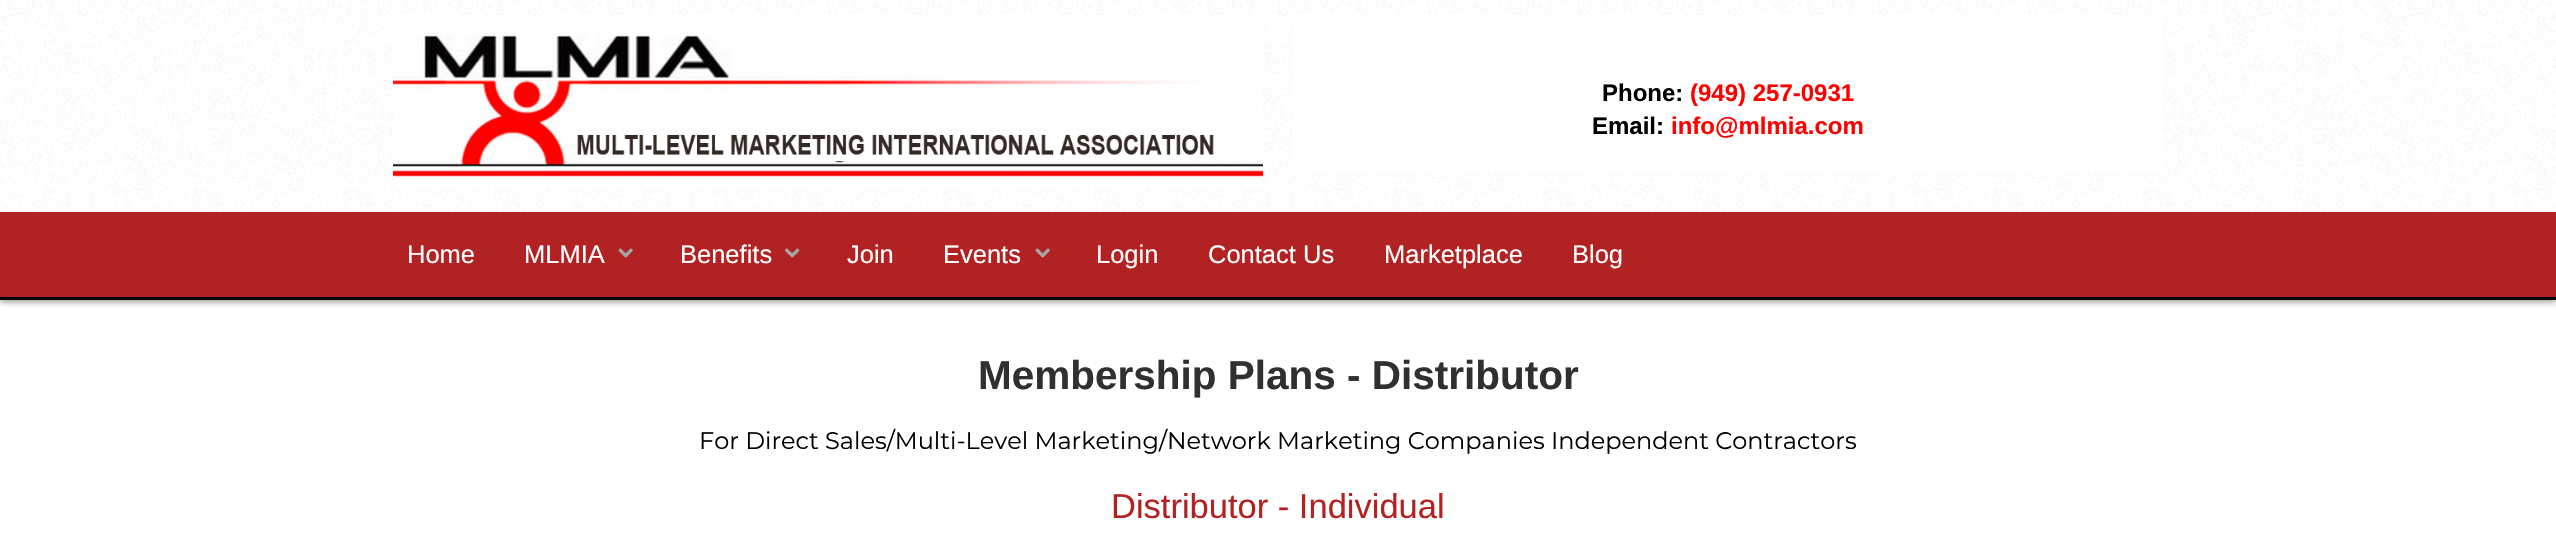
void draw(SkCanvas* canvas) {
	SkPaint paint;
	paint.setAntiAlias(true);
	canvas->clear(0xff000000);
	paint.setColor(0xffffffff);
	canvas->drawRect(SkRect::MakeXYWH(0, 300, 2556, 241), paint);
	paint.setColor(0x66000000);
	paint.setMaskFilter(SkMaskFilter::MakeBlur(kNormal_SkBlurStyle, 3));
	canvas->drawRect(SkRect::MakeXYWH(0, 3, 2556, 299), paint);
	paint.setMaskFilter(nullptr);
	paint.setColor(0xffffffff);
	canvas->drawRect(SkRect::MakeXYWH(0, 0, 2556, 212), paint);
	canvas->drawImageRect(SkImages::DeferredFromEncodedData(SkData::MakeFromFileName("img1.png")), SkRect::MakeXYWH(0, 0, 2556, 212), SkSamplingOptions());
	canvas->drawImageRect(SkImages::DeferredFromEncodedData(SkData::MakeFromFileName("img2.png")), SkRect::MakeXYWH(393, 15, 870, 174), SkSamplingOptions());
	canvas->drawRect(SkRect::MakeXYWH(1293, 15, 870, 158), paint);
	SkFont f1(fontMgr->matchFamilyStyle("Liberation Sans", SkFontStyle::Bold()), 24);
	f1.setSubpixel(true);
	paint.setColor(0xff000000);
	canvas->drawString("Phone:", 1602, 101, f1, paint);
	paint.setColor(0xffff0000);
	canvas->drawString("(949) 257-0931", 1690, 101, f1, paint);
	paint.setColor(0xff000000);
	canvas->drawString("Email:", 1592, 134, f1, paint);
	paint.setColor(0xffff0000);
	canvas->drawString("info@mlmia.com", 1671, 134, f1, paint);
	paint.setColor(0xffb22222);
	canvas->drawRect(SkRect::MakeXYWH(0, 212, 2556, 85), paint);
	SkFont f2(fontMgr->matchFamilyStyle("Liberation Sans", SkFontStyle::Normal()), 25.5);
	f2.setSubpixel(true);
	paint.setColor(0xffffffff);
	canvas->drawString("Home", 407, 263, f2, paint);
	canvas->drawString("MLMIA", 524, 263, f2, paint);
	canvas->drawImageRect(SkImages::DeferredFromEncodedData(SkData::MakeFromFileName("img3.png")), SkRect::MakeXYWH(618, 248, 15, 10), SkSamplingOptions());
	canvas->drawString("Benefits", 680, 263, f2, paint);
	canvas->drawImageRect(SkImages::DeferredFromEncodedData(SkData::MakeFromFileName("img4.png")), SkRect::MakeXYWH(785, 248, 15, 10), SkSamplingOptions());
	canvas->drawString("Join", 847, 263, f2, paint);
	canvas->drawString("Events", 943, 263, f2, paint);
	canvas->drawImageRect(SkImages::DeferredFromEncodedData(SkData::MakeFromFileName("img3.png")), SkRect::MakeXYWH(1035, 248, 15, 10), SkSamplingOptions());
	canvas->drawString("Login", 1096, 263, f2, paint);
	canvas->drawString("Contact Us", 1208, 263, f2, paint);
	canvas->drawString("Marketplace", 1384, 263, f2, paint);
	canvas->drawString("Blog", 1572, 263, f2, paint);
	SkFont f3(fontMgr->matchFamilyStyle("Liberation Sans", SkFontStyle::Bold()), 40.5);
	f3.setSubpixel(true);
	paint.setColor(0xff303030);
	canvas->drawString("Membership Plans - Distributor", 978, 389, f3, paint);
	SkFont f4(fontMgr->matchFamilyStyle("Montserrat", SkFontStyle::Normal()), 24);
	f4.setSubpixel(true);
	paint.setColor(0xff000000);
	canvas->drawString("For Direct Sales/Multi-Level Marketing/Network Marketing Companies Independent Contractors", 699, 449, f4, paint);
	SkFont f5(fontMgr->matchFamilyStyle("Liberation Sans", SkFontStyle::Normal()), 34.5);
	f5.setSubpixel(true);
	paint.setColor(0xffb22222);
	canvas->drawString("Distributor - Individual", 1111, 518, f5, paint);
}
